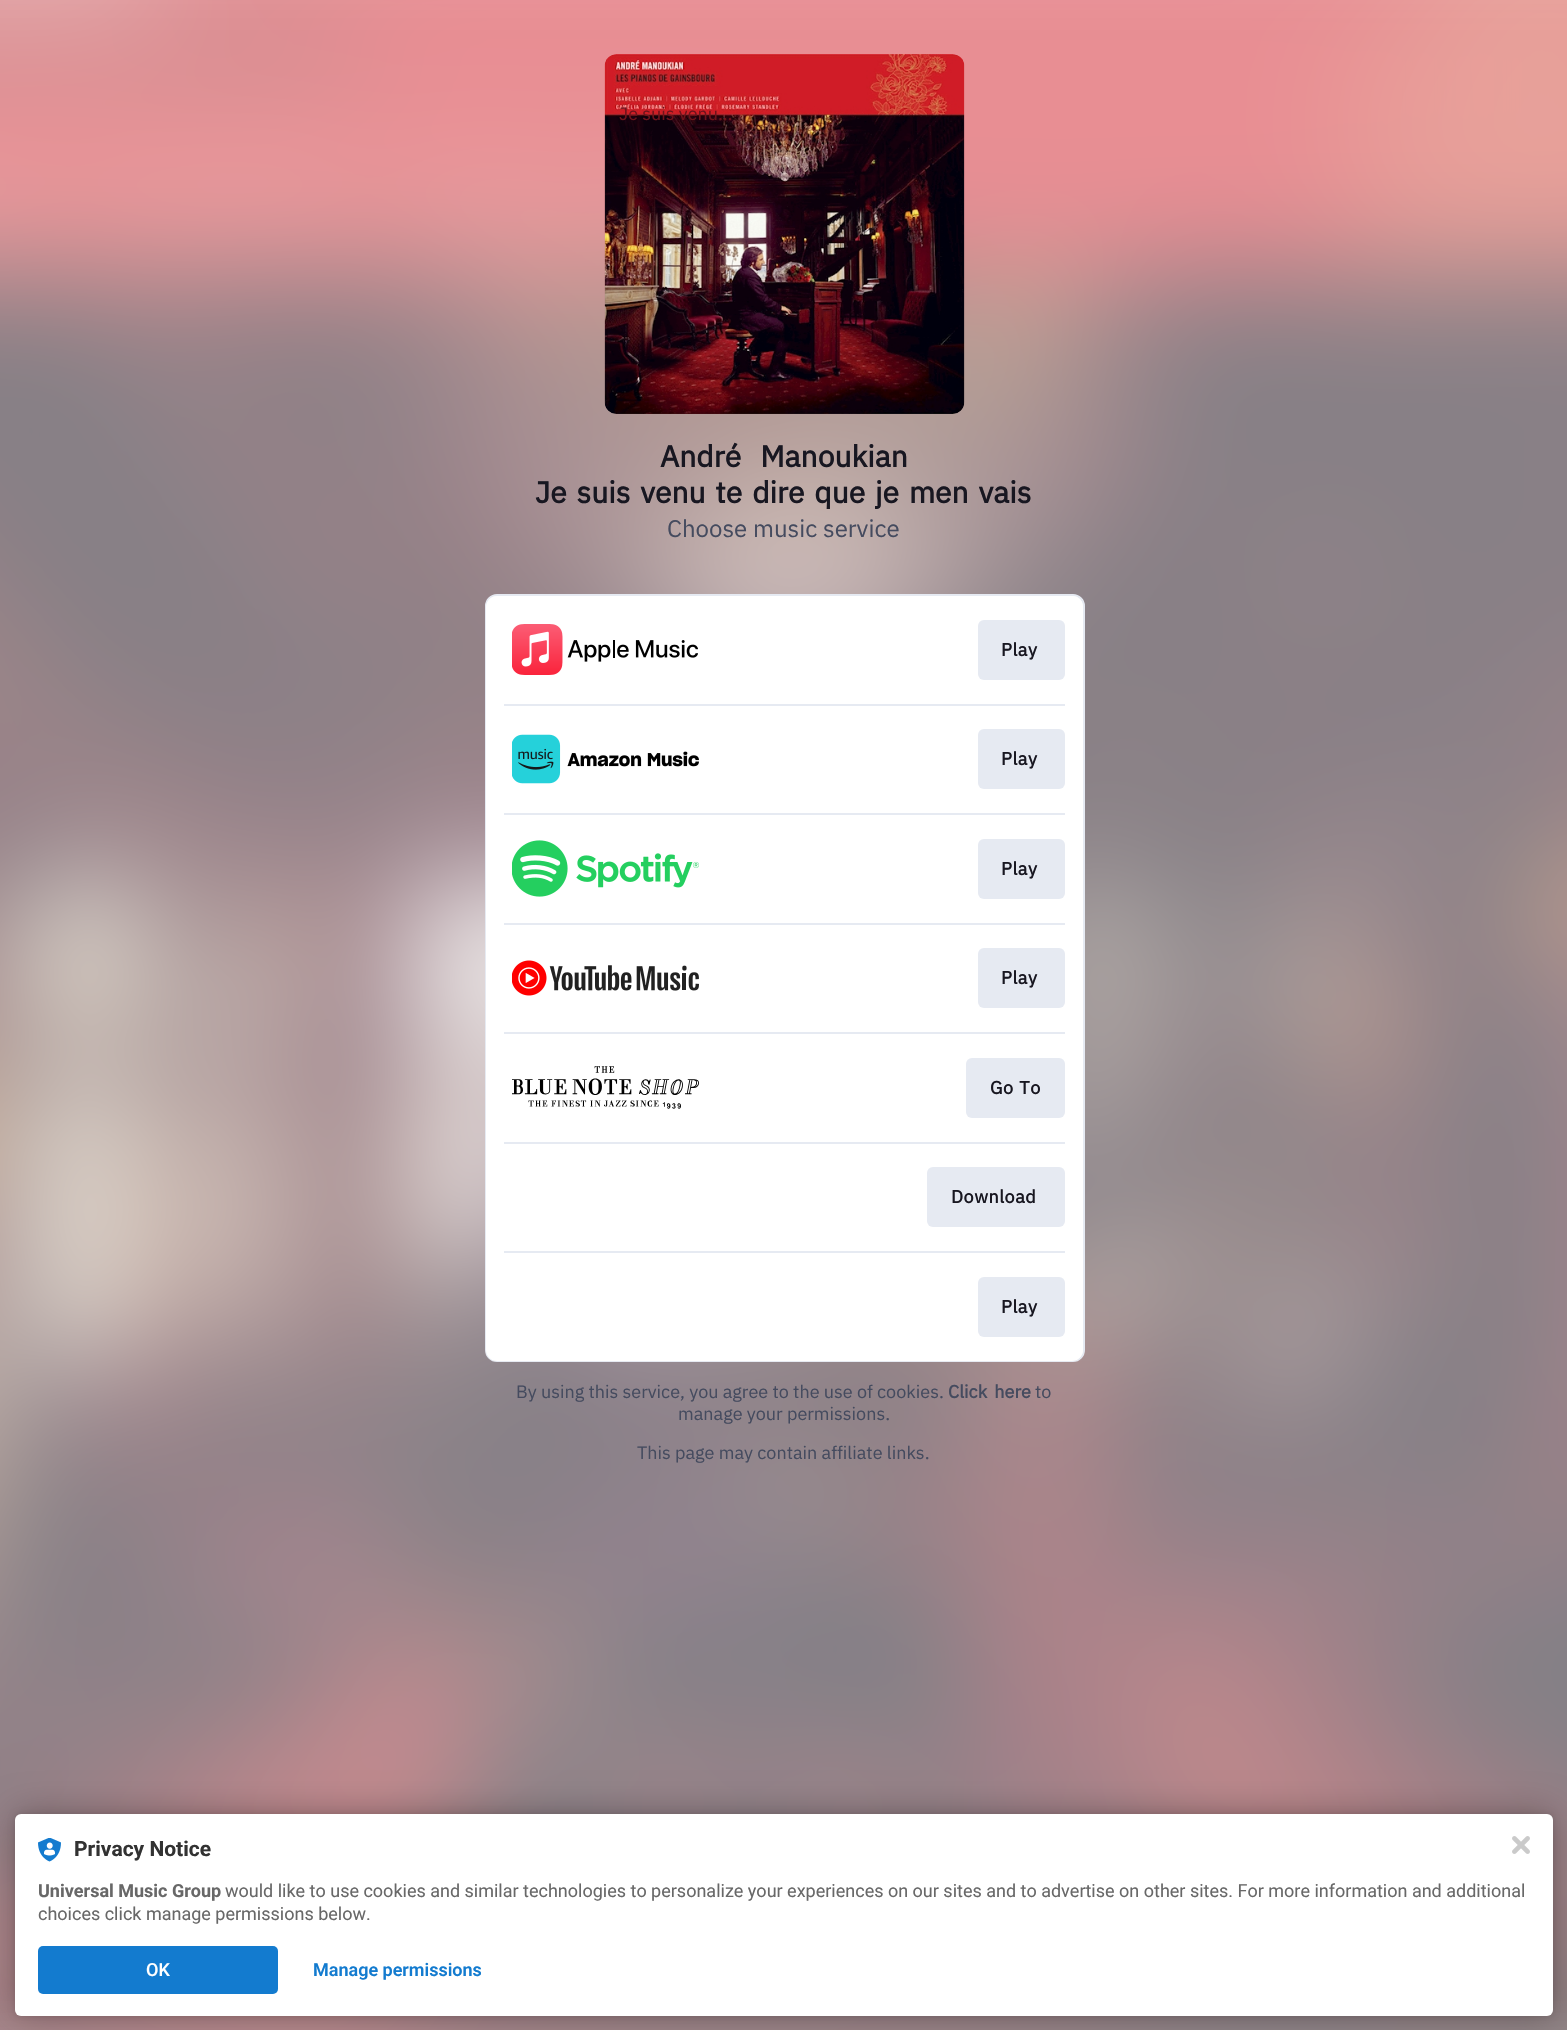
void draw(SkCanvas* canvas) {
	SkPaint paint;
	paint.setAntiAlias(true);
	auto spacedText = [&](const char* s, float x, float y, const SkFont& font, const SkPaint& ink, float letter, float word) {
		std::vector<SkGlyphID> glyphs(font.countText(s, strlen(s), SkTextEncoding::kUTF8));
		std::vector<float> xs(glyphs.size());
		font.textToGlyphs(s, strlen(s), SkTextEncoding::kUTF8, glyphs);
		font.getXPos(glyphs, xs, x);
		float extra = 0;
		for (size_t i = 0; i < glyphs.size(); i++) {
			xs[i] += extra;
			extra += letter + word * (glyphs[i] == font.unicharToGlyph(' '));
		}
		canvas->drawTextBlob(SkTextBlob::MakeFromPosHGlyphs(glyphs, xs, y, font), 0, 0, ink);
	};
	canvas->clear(0xffffffff);
	canvas->drawImageRect(SkImages::DeferredFromEncodedData(SkData::MakeFromFileName("img1.png")), SkRect::MakeXYWH(0, 0, 1567, 2030), SkSamplingOptions());
	canvas->drawImageRect(SkImages::DeferredFromEncodedData(SkData::MakeFromFileName("img2.png")), SkRect::MakeXYWH(604, 54, 361, 360), SkSamplingOptions());
	SkFont f1(fontMgr->matchFamilyStyle("IBM Plex Sans", SkFontStyle::Normal()), 18);
	f1.setSubpixel(true);
	paint.setColor(0xff6f131b);
	canvas->drawString("Je suis venu…", 619, 120, f1, paint);
	SkFont f2(fontMgr->matchFamilyStyle("IBM Plex Sans", SkFontStyle::Bold()), 30);
	f2.setSubpixel(true);
	paint.setColor(0xff181721);
	spacedText("André Manoukian", 660, 467, f2, paint, 0, 12);
	spacedText("Je suis venu te dire que je men vais", 535, 503, f2, paint, 0, 2.75);
	SkFont f3(fontMgr->matchFamilyStyle("IBM Plex Sans", SkFontStyle::Normal()), 24);
	f3.setSubpixel(true);
	paint.setColor(0xff454b5f);
	canvas->drawString("Choose music service", 667, 537, f3, paint);
	paint.setColor(0xffffffff);
	canvas->drawRoundRect(SkRect::MakeXYWH(486, 595, 598, 766), 11, 11, paint);
	paint.setStroke(true);
	paint.setStrokeWidth(2);
	paint.setColor(0xffe6eaf2);
	canvas->drawRoundRect(SkRect::MakeXYWH(486, 595, 598, 766), 11, 11, paint);
	paint.setStroke(false);
	paint.setColor(0xffffffff);
	canvas->drawRoundRect(SkRect::MakeXYWH(486, 596, 597, 765), 11, 11, paint);
	canvas->drawImageRect(SkImages::DeferredFromEncodedData(SkData::MakeFromFileName("img3.png")), SkRect::MakeXYWH(512, 624, 186, 51), SkSamplingOptions());
	paint.setColor(0xffe6eaf2);
	canvas->drawRoundRect(SkRect::MakeXYWH(978, 620, 87, 60), 6, 6, paint);
	SkFont f4(fontMgr->matchFamilyStyle("IBM Plex Sans", SkFontStyle::Bold()), 18);
	f4.setSubpixel(true);
	paint.setColor(0xff181721);
	spacedText("Play", 1001, 656, f4, paint, 0.5, 0);
	paint.setColor(0xffe6eaf2);
	canvas->drawRect(SkRect::MakeXYWH(504, 704, 561, 2), paint);
	canvas->drawImageRect(SkImages::DeferredFromEncodedData(SkData::MakeFromFileName("img4.png")), SkRect::MakeXYWH(512, 734, 187, 50), SkSamplingOptions());
	canvas->drawRoundRect(SkRect::MakeXYWH(978, 729, 87, 60), 6, 6, paint);
	paint.setColor(0xff181721);
	spacedText("Play", 1001, 765, f4, paint, 0.5, 0);
	paint.setColor(0xffe6eaf2);
	canvas->drawRect(SkRect::MakeXYWH(504, 813, 561, 2), paint);
	canvas->drawImageRect(SkImages::DeferredFromEncodedData(SkData::MakeFromFileName("img5.png")), SkRect::MakeXYWH(512, 840, 187, 57), SkSamplingOptions());
	canvas->drawRoundRect(SkRect::MakeXYWH(978, 839, 87, 60), 6, 6, paint);
	paint.setColor(0xff181721);
	spacedText("Play", 1001, 875, f4, paint, 0.5, 0);
	paint.setColor(0xffe6eaf2);
	canvas->drawRect(SkRect::MakeXYWH(504, 923, 561, 2), paint);
	canvas->drawImageRect(SkImages::DeferredFromEncodedData(SkData::MakeFromFileName("img6.png")), SkRect::MakeXYWH(512, 960, 187, 36), SkSamplingOptions());
	canvas->drawRoundRect(SkRect::MakeXYWH(978, 948, 87, 60), 6, 6, paint);
	paint.setColor(0xff181721);
	spacedText("Play", 1001, 984, f4, paint, 0.5, 0);
	paint.setColor(0xffe6eaf2);
	canvas->drawRect(SkRect::MakeXYWH(504, 1032, 561, 2), paint);
	canvas->drawImageRect(SkImages::DeferredFromEncodedData(SkData::MakeFromFileName("img7.png")), SkRect::MakeXYWH(512, 1066, 187, 43), SkSamplingOptions());
	canvas->drawRoundRect(SkRect::MakeXYWH(966, 1058, 99, 60), 6, 6, paint);
	paint.setColor(0xff181721);
	spacedText("Go To", 990, 1094, f4, paint, 0.5, 1);
	paint.setColor(0xffe6eaf2);
	canvas->drawRect(SkRect::MakeXYWH(504, 1142, 561, 2), paint);
	canvas->drawRoundRect(SkRect::MakeXYWH(927, 1167, 138, 60), 6, 6, paint);
	paint.setColor(0xff181721);
	spacedText("Download", 951, 1203, f4, paint, 0.5, 0);
	paint.setColor(0xffe6eaf2);
	canvas->drawRect(SkRect::MakeXYWH(504, 1251, 561, 2), paint);
	canvas->drawRoundRect(SkRect::MakeXYWH(978, 1277, 87, 60), 6, 6, paint);
	paint.setColor(0xff181721);
	spacedText("Play", 1001, 1313, f4, paint, 0.5, 0);
	paint.setColor(0xff454b5f);
	canvas->drawString("By using this service, you agree to the use of cookies.", 516, 1398, f1, paint);
	spacedText("Click here", 948, 1398, f4, paint, 0, 3);
	canvas->drawString("to", 1035, 1398, f1, paint);
	canvas->drawString("manage your permissions.", 678, 1420, f1, paint);
	canvas->drawString("This page may contain affiliate links.", 637, 1459, f1, paint);
	paint.setColor(0x1f000000);
	paint.setMaskFilter(SkMaskFilter::MakeBlur(kNormal_SkBlurStyle, 3));
	canvas->drawRoundRect(SkRect::MakeXYWH(15, 1814, 1538, 202), 6, 6, paint);
	paint.setMaskFilter(nullptr);
	paint.setColor(0x4d000000);
	paint.setMaskFilter(SkMaskFilter::MakeBlur(kNormal_SkBlurStyle, 18));
	canvas->drawRoundRect(SkRect::MakeXYWH(15, 1814, 1538, 202), 6, 6, paint);
	paint.setMaskFilter(nullptr);
	paint.setColor(0xffffffff);
	canvas->drawRoundRect(SkRect::MakeXYWH(15, 1814, 1538, 202), 6, 6, paint);
	canvas->drawImageRect(SkImages::DeferredFromEncodedData(SkData::MakeFromFileName("img8.png")), SkRect::MakeXYWH(1512, 1836, 18, 18), SkSamplingOptions());
	canvas->drawImageRect(SkImages::DeferredFromEncodedData(SkData::MakeFromFileName("img9.png")), SkRect::MakeXYWH(38, 1838, 23, 24), SkSamplingOptions());
	SkFont f5(fontMgr->matchFamilyStyle("Roboto", SkFontStyle::Bold()), 21);
	f5.setSubpixel(true);
	paint.setColor(0xff323232);
	canvas->drawString("Privacy Notice", 74, 1856, f5, paint);
	SkFont f6(fontMgr->matchFamilyStyle("Roboto", SkFontStyle::Bold()), 18);
	f6.setSubpixel(true);
	paint.setColor(0xff686868);
	canvas->drawString("Universal Music Group", 38, 1897, f6, paint);
	SkFont f7(fontMgr->matchFamilyStyle("Roboto", SkFontStyle::Normal()), 18);
	f7.setSubpixel(true);
	canvas->drawString("would like to use cookies and similar technologies to personalize your experiences on our sites and to advertise on other sites. For more information and additional", 225, 1897, f7, paint);
	canvas->drawString("choices click manage permissions below.", 38, 1920, f7, paint);
	paint.setColor(0xff137bcf);
	canvas->drawRoundRect(SkRect::MakeXYWH(38, 1946, 240, 48), 5, 5, paint);
	SkFont f8(fontMgr->matchFamilyStyle("Roboto", SkFontStyle(500, SkFontStyle::kNormal_Width, SkFontStyle::kUpright_Slant)), 18);
	f8.setSubpixel(true);
	paint.setColor(0xffffffff);
	canvas->drawString("OK", 146, 1976, f8, paint);
	SkFont f9(fontMgr->matchFamilyStyle("Roboto", SkFontStyle(600, SkFontStyle::kNormal_Width, SkFontStyle::kUpright_Slant)), 18);
	f9.setSubpixel(true);
	paint.setColor(0xff137bcf);
	canvas->drawString("Manage permissions", 313, 1976, f9, paint);
}
